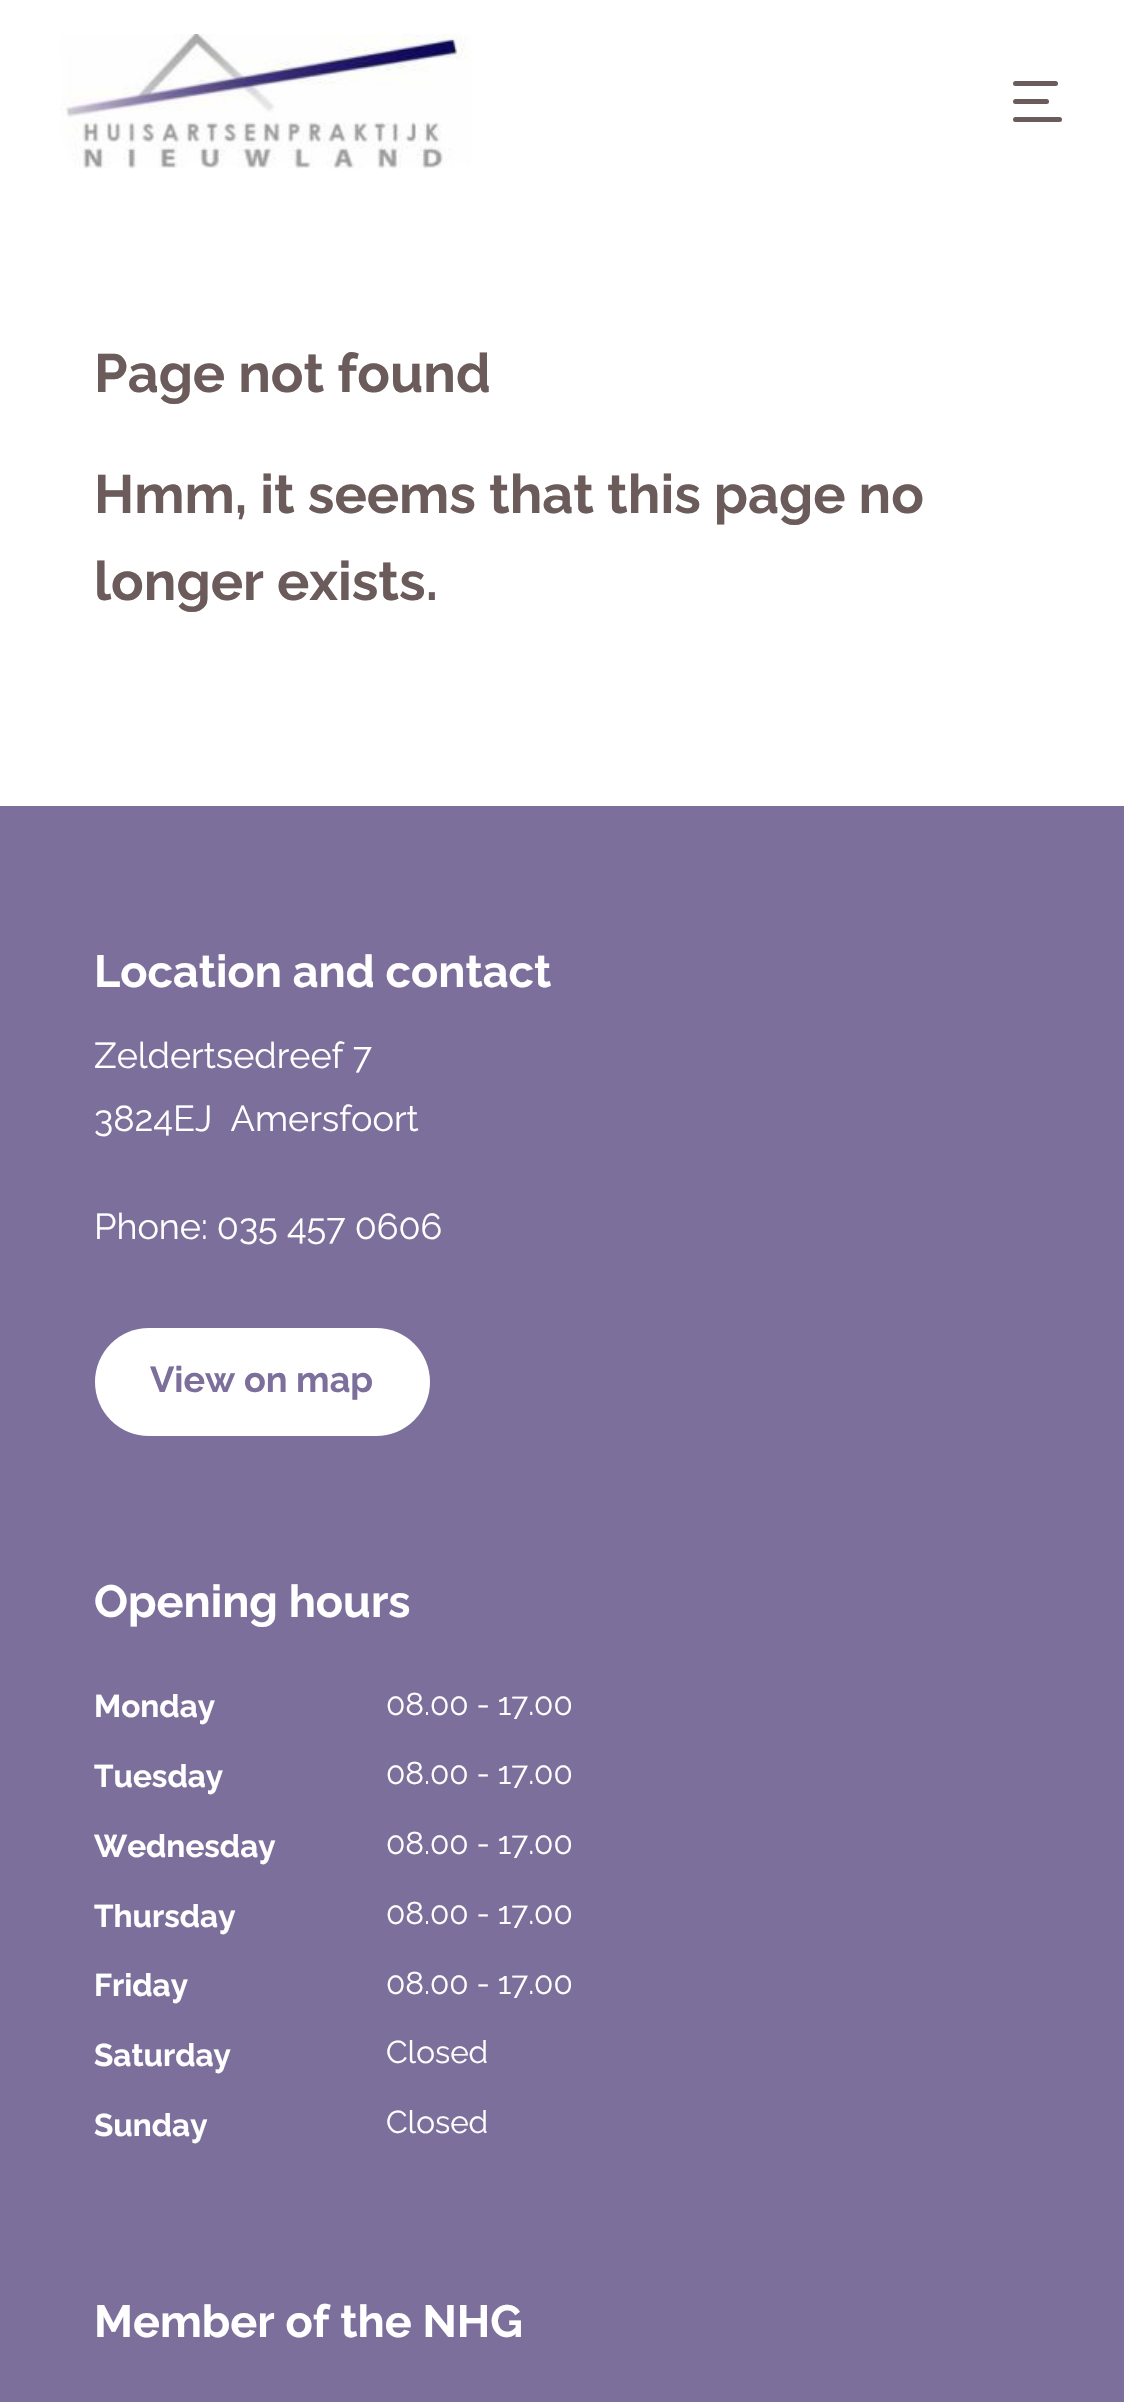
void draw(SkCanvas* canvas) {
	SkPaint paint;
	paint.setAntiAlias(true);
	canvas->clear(0xffffffff);
	canvas->drawImageRect(SkImages::DeferredFromEncodedData(SkData::MakeFromFileName("img1.png")), SkRect::MakeXYWH(60, 34, 411, 135), SkSamplingOptions());
	paint.setColor(0xff6b5b5b);
	canvas->drawRoundRect(SkRect::MakeXYWH(1013, 81, 45, 5), 2.5, 2.5, paint);
	canvas->drawRoundRect(SkRect::MakeXYWH(1013, 99, 36, 5), 2.5, 2.5, paint);
	canvas->drawRoundRect(SkRect::MakeXYWH(1013, 117, 49, 5), 2.5, 2.5, paint);
	SkFont f1(fontMgr->matchFamilyStyle("Raleway", SkFontStyle::Bold()), 54);
	f1.setSubpixel(true);
	canvas->drawString("Page not found", 94, 392, f1, paint);
	canvas->drawString("Hmm, it seems that this page no", 94, 513, f1, paint);
	canvas->drawString("longer exists.", 94, 600, f1, paint);
	paint.setColor(0xff7c6f9b);
	canvas->drawRect(SkRect::MakeXYWH(0, 806, 1124, 1596), paint);
	SkFont f2(fontMgr->matchFamilyStyle("Raleway", SkFontStyle::Bold()), 45);
	f2.setSubpixel(true);
	paint.setColor(0xffffffff);
	canvas->drawString("Location and contact", 94, 987, f2, paint);
	SkFont f3(fontMgr->matchFamilyStyle("Raleway", SkFontStyle::Normal()), 36);
	f3.setSubpixel(true);
	canvas->drawString("Zeldertsedreef 7", 94, 1068, f3, paint);
	canvas->drawString("3824EJ  Amersfoort", 94, 1131, f3, paint);
	canvas->drawString("Phone: 035 457 0606", 94, 1239, f3, paint);
	canvas->drawRoundRect(SkRect::MakeXYWH(95, 1328, 335, 108), 54, 54, paint);
	SkFont f4(fontMgr->matchFamilyStyle("Raleway", SkFontStyle::Bold()), 36);
	f4.setSubpixel(true);
	paint.setColor(0xff7c6f9b);
	canvas->drawString("View on map", 150, 1392, f4, paint);
	paint.setColor(0xffffffff);
	canvas->drawString("Opening hours", 94, 1617, f2, paint);
	SkFont f5(fontMgr->matchFamilyStyle("Raleway", SkFontStyle::Bold()), 31.5);
	f5.setSubpixel(true);
	canvas->drawString("Monday", 94, 1717, f5, paint);
	SkFont f6(fontMgr->matchFamilyStyle("Raleway", SkFontStyle::Normal()), 31.5);
	f6.setSubpixel(true);
	canvas->drawString("08.00 - 17.00", 386, 1715, f6, paint);
	canvas->drawString("Tuesday", 94, 1787, f5, paint);
	canvas->drawString("08.00 - 17.00", 386, 1784, f6, paint);
	canvas->drawString("Wednesday", 94, 1857, f5, paint);
	canvas->drawString("08.00 - 17.00", 386, 1854, f6, paint);
	canvas->drawString("Thursday", 94, 1927, f5, paint);
	canvas->drawString("08.00 - 17.00", 386, 1924, f6, paint);
	canvas->drawString("Friday", 94, 1996, f5, paint);
	canvas->drawString("08.00 - 17.00", 386, 1994, f6, paint);
	canvas->drawString("Saturday", 94, 2066, f5, paint);
	canvas->drawString("Closed", 386, 2063, f6, paint);
	canvas->drawString("Sunday", 94, 2136, f5, paint);
	canvas->drawString("Closed", 386, 2133, f6, paint);
	canvas->drawString("Member of the NHG", 94, 2337, f2, paint);
}
